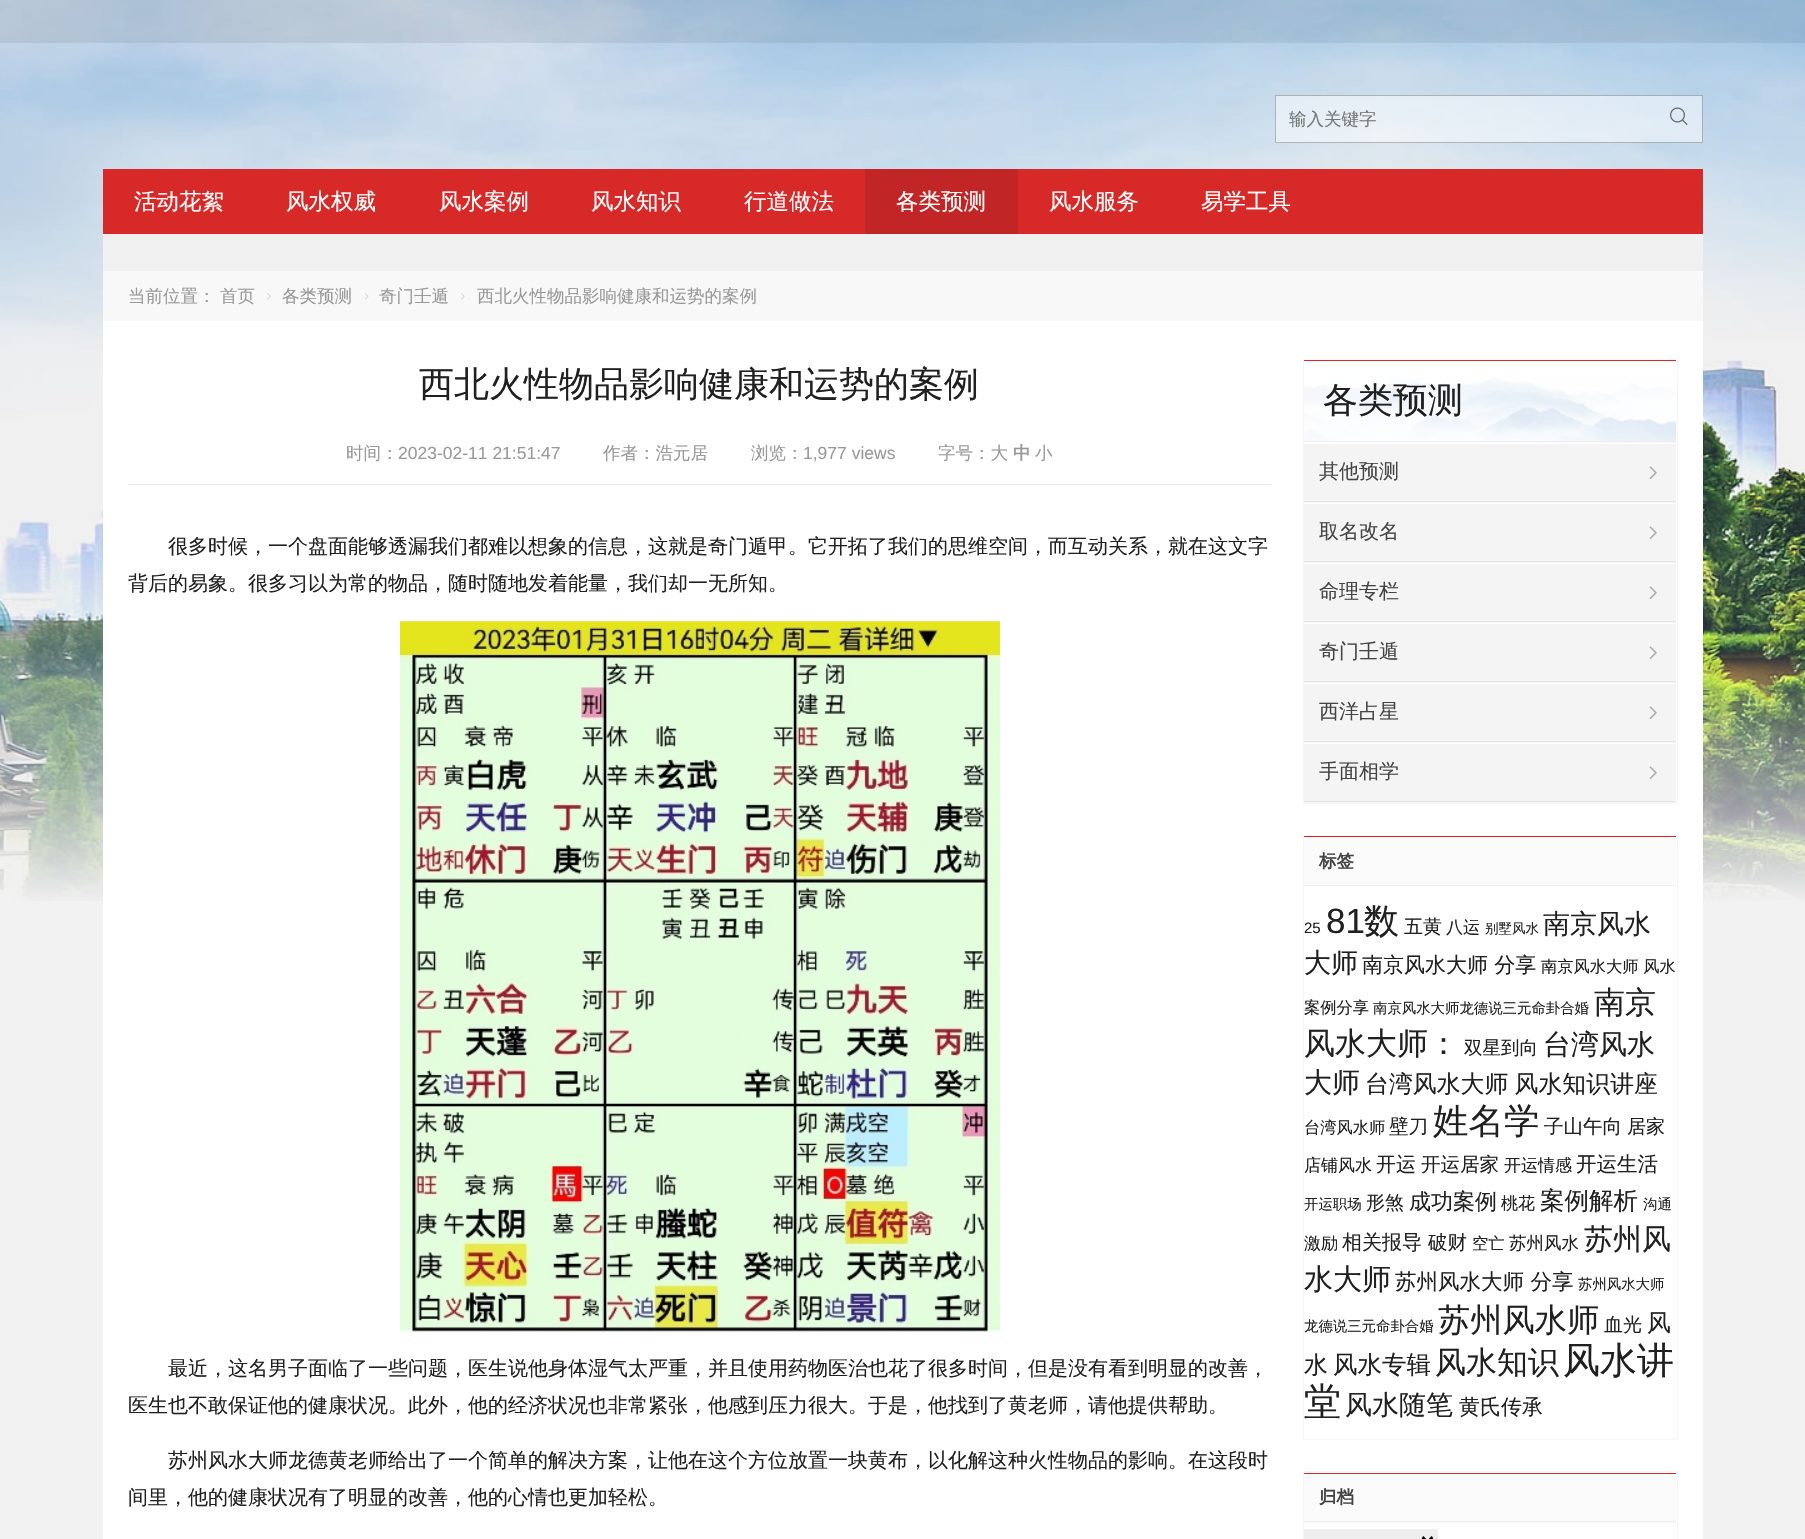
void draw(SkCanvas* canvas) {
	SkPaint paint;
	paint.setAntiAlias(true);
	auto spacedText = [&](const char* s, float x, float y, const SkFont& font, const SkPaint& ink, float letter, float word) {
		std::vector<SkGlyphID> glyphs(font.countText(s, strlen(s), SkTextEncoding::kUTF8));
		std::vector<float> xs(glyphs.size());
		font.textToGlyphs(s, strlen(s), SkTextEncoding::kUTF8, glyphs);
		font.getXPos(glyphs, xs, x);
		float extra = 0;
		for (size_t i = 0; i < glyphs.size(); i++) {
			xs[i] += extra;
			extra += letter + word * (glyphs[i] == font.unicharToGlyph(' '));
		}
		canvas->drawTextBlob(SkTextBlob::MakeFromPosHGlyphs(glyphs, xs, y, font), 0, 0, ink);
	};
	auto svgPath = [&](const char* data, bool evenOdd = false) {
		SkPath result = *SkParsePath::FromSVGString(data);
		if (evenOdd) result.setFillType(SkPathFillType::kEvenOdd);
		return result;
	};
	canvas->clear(0xfff2f2f2);
	canvas->drawImageRect(SkImages::DeferredFromEncodedData(SkData::MakeFromFileName("img1.png")), SkRect::MakeXYWH(0, 0, 1805, 901), SkSamplingOptions());
	paint.setColor(0x12000000);
	canvas->drawRect(SkRect::MakeXYWH(0, 0, 1805, 43), paint);
	paint.setColor(0x80ffffff);
	canvas->drawRect(SkRect::MakeXYWH(1275, 95, 428, 48), paint);
	paint.setStroke(true);
	paint.setStrokeWidth(1);
	paint.setColor(0x40000000);
	canvas->drawRect(SkRect::MakeXYWH(1275.5, 95.5, 427, 47), paint);
	SkFont f1(fontMgr->matchFamilyStyle("WenQuanYi Zen Hei", SkFontStyle(500, SkFontStyle::kNormal_Width, SkFontStyle::kUpright_Slant)), 17.5);
	f1.setSubpixel(true);
	paint.setStroke(false);
	paint.setColor(0xff757575);
	canvas->drawString("输入关键字", 1289, 125, f1, paint);
	canvas->drawImageRect(SkImages::DeferredFromEncodedData(SkData::MakeFromFileName("img2.png")), SkRect::MakeXYWH(1670, 107, 18, 18), SkSamplingOptions());
	paint.setColor(0xffd82929);
	canvas->drawRect(SkRect::MakeXYWH(103, 169, 1600, 65), paint);
	SkFont f2(fontMgr->matchFamilyStyle("WenQuanYi Zen Hei", SkFontStyle(500, SkFontStyle::kNormal_Width, SkFontStyle::kUpright_Slant)), 22.5);
	f2.setSubpixel(true);
	paint.setColor(0xffffffff);
	canvas->drawString("活动花絮", 134, 209, f2, paint);
	canvas->drawString("风水权威", 286, 209, f2, paint);
	canvas->drawString("风水案例", 439, 209, f2, paint);
	canvas->drawString("风水知识", 591, 209, f2, paint);
	canvas->drawString("行道做法", 744, 209, f2, paint);
	paint.setColor(0xffc22525);
	canvas->drawRect(SkRect::MakeXYWH(865, 169, 153, 65), paint);
	paint.setColor(0xffffffff);
	canvas->drawString("各类预测", 896, 209, f2, paint);
	canvas->drawString("风水服务", 1049, 209, f2, paint);
	canvas->drawString("易学工具", 1201, 209, f2, paint);
	paint.setColor(0xfff0f0f0);
	canvas->drawRect(SkRect::MakeXYWH(103, 234, 1600, 37), paint);
	paint.setColor(0xfff8f8f8);
	canvas->drawRect(SkRect::MakeXYWH(103, 271, 1600, 50), paint);
	paint.setColor(0xff999999);
	canvas->drawString("当前位置：", 128, 302, f1, paint);
	canvas->drawString("首页", 220, 302, f1, paint);
	canvas->drawImageRect(SkImages::DeferredFromEncodedData(SkData::MakeFromFileName("img3.png")), SkRect::MakeXYWH(267, 293, 4, 7), SkSamplingOptions());
	canvas->drawString("各类预测", 282, 302, f1, paint);
	canvas->drawImageRect(SkImages::DeferredFromEncodedData(SkData::MakeFromFileName("img4.png")), SkRect::MakeXYWH(365, 293, 4, 7), SkSamplingOptions());
	canvas->drawString("奇门壬遁", 379, 302, f1, paint);
	canvas->drawImageRect(SkImages::DeferredFromEncodedData(SkData::MakeFromFileName("img5.png")), SkRect::MakeXYWH(461, 293, 4, 7), SkSamplingOptions());
	canvas->drawString("西北火性物品影响健康和运势的案例", 477, 302, f1, paint);
	paint.setColor(0xffffffff);
	canvas->drawRect(SkRect::MakeXYWH(103, 321, 1600, 1218), paint);
	SkFont f3(fontMgr->matchFamilyStyle("WenQuanYi Zen Hei", SkFontStyle(500, SkFontStyle::kNormal_Width, SkFontStyle::kUpright_Slant)), 35);
	f3.setSubpixel(true);
	paint.setColor(0xff202020);
	canvas->drawString("西北火性物品影响健康和运势的案例", 419, 396, f3, paint);
	paint.setColor(0xffeaeaea);
	canvas->drawRect(SkRect::MakeXYWH(128, 484, 1143, 1), paint);
	paint.setColor(0xff999999);
	canvas->drawString("时间：", 346, 459, f1, paint);
	SkFont f4(fontMgr->matchFamilyStyle("Liberation Sans", SkFontStyle::Normal()), 17.5);
	f4.setSubpixel(true);
	canvas->drawString("2023-02-11 21:51:47", 398, 459, f4, paint);
	canvas->drawString("作者：浩元居", 603, 459, f1, paint);
	canvas->drawString("浏览：", 751, 459, f1, paint);
	canvas->drawString("1,977 views", 803, 459, f4, paint);
	canvas->drawString("字号：大", 938, 459, f1, paint);
	SkFont f5(fontMgr->matchFamilyStyle("WenQuanYi Zen Hei", SkFontStyle::Bold()), 17.5);
	f5.setSubpixel(true);
	canvas->drawString("中", 1013, 459, f5, paint);
	canvas->drawString("小", 1035, 459, f1, paint);
	SkFont f6(fontMgr->matchFamilyStyle("WenQuanYi Zen Hei", SkFontStyle(500, SkFontStyle::kNormal_Width, SkFontStyle::kUpright_Slant)), 20);
	f6.setSubpixel(true);
	paint.setColor(0xff202020);
	canvas->drawString("很多时候，一个盘面能够透漏我们都难以想象的信息，这就是奇门遁甲。它开拓了我们的思维空间，而互动关系，就在这文字", 168, 553, f6, paint);
	canvas->drawString("背后的易象。很多习以为常的物品，随时随地发着能量，我们却一无所知。", 128, 590, f6, paint);
	canvas->drawImageRect(SkImages::DeferredFromEncodedData(SkData::MakeFromFileName("img6.png")), SkRect::MakeXYWH(400, 621, 600, 711), SkSamplingOptions());
	canvas->drawString("最近，这名男子面临了一些问题，医生说他身体湿气太严重，并且使用药物医治也花了很多时间，但是没有看到明显的改善，", 168, 1375, f6, paint);
	canvas->drawString("医生也不敢保证他的健康状况。此外，他的经济状况也非常紧张，他感到压力很大。于是，他找到了黄老师，请他提供帮助。", 128, 1412, f6, paint);
	canvas->drawString("苏州风水大师龙德黄老师给出了一个简单的解决方案，让他在这个方位放置一块黄布，以化解这种火性物品的影响。在这段时", 168, 1467, f6, paint);
	canvas->drawString("间里，他的健康状况有了明显的改善，他的心情也更加轻松。", 128, 1504, f6, paint);
	paint.setStroke(true);
	paint.setColor(0xfff6f6f6);
	canvas->drawRect(SkRect::MakeXYWH(1303.5, 359.5, 374, 444), paint);
	canvas->drawImageRect(SkImages::DeferredFromEncodedData(SkData::MakeFromFileName("img7.png")), SkRect::MakeXYWH(1304, 376, 373, 67), SkSamplingOptions());
	paint.setStroke(false);
	paint.setColor(0xffd82929);
	canvas->drawRect(SkRect::MakeXYWH(1304, 360, 372, 1), paint);
	paint.setColor(0xffeeeeee);
	canvas->drawRect(SkRect::MakeXYWH(1304, 441, 372, 1), paint);
	paint.setColor(0xff202020);
	canvas->drawString("各类预测", 1323, 412, f3, paint);
	paint.setColor(0xfff4f4f4);
	canvas->drawRect(SkRect::MakeXYWH(1304, 444, 372, 59), paint);
	paint.setColor(0xffe4e4e4);
	canvas->drawRect(SkRect::MakeXYWH(1304, 501, 372, 1), paint);
	paint.setColor(0xff444444);
	canvas->drawString("其他预测", 1319, 478, f6, paint);
	canvas->drawImageRect(SkImages::DeferredFromEncodedData(SkData::MakeFromFileName("img8.png")), SkRect::MakeXYWH(1649, 466, 8, 14), SkSamplingOptions());
	paint.setColor(0xfff4f4f4);
	canvas->drawRect(SkRect::MakeXYWH(1304, 504, 372, 59), paint);
	paint.setColor(0xffe4e4e4);
	canvas->drawRect(SkRect::MakeXYWH(1304, 561, 372, 1), paint);
	paint.setColor(0xff444444);
	canvas->drawString("取名改名", 1319, 538, f6, paint);
	canvas->drawImageRect(SkImages::DeferredFromEncodedData(SkData::MakeFromFileName("img8.png")), SkRect::MakeXYWH(1649, 526, 8, 14), SkSamplingOptions());
	paint.setColor(0xfff4f4f4);
	canvas->drawRect(SkRect::MakeXYWH(1304, 564, 372, 59), paint);
	paint.setColor(0xffe4e4e4);
	canvas->drawRect(SkRect::MakeXYWH(1304, 621, 372, 1), paint);
	paint.setColor(0xff444444);
	canvas->drawString("命理专栏", 1319, 598, f6, paint);
	canvas->drawImageRect(SkImages::DeferredFromEncodedData(SkData::MakeFromFileName("img8.png")), SkRect::MakeXYWH(1649, 586, 8, 14), SkSamplingOptions());
	paint.setColor(0xfff4f4f4);
	canvas->drawRect(SkRect::MakeXYWH(1304, 624, 372, 59), paint);
	paint.setColor(0xffe4e4e4);
	canvas->drawRect(SkRect::MakeXYWH(1304, 681, 372, 1), paint);
	paint.setColor(0xff444444);
	canvas->drawString("奇门壬遁", 1319, 658, f6, paint);
	canvas->drawImageRect(SkImages::DeferredFromEncodedData(SkData::MakeFromFileName("img8.png")), SkRect::MakeXYWH(1649, 646, 8, 14), SkSamplingOptions());
	paint.setColor(0xfff4f4f4);
	canvas->drawRect(SkRect::MakeXYWH(1304, 684, 372, 59), paint);
	paint.setColor(0xffe4e4e4);
	canvas->drawRect(SkRect::MakeXYWH(1304, 741, 372, 1), paint);
	paint.setColor(0xff444444);
	canvas->drawString("西洋占星", 1319, 718, f6, paint);
	canvas->drawImageRect(SkImages::DeferredFromEncodedData(SkData::MakeFromFileName("img8.png")), SkRect::MakeXYWH(1649, 706, 8, 14), SkSamplingOptions());
	paint.setColor(0xfff4f4f4);
	canvas->drawRect(SkRect::MakeXYWH(1304, 744, 372, 59), paint);
	paint.setColor(0xffe4e4e4);
	canvas->drawRect(SkRect::MakeXYWH(1304, 801, 372, 1), paint);
	paint.setColor(0xff444444);
	canvas->drawString("手面相学", 1319, 778, f6, paint);
	canvas->drawImageRect(SkImages::DeferredFromEncodedData(SkData::MakeFromFileName("img8.png")), SkRect::MakeXYWH(1649, 766, 8, 14), SkSamplingOptions());
	paint.setStroke(true);
	paint.setColor(0xfff6f6f6);
	canvas->drawRect(SkRect::MakeXYWH(1303.5, 835.5, 374, 604), paint);
	paint.setStroke(false);
	paint.setColor(0xfffbfbfb);
	canvas->drawRect(SkRect::MakeXYWH(1304, 837, 372, 48), paint);
	paint.setColor(0xffd82929);
	canvas->drawRect(SkRect::MakeXYWH(1304, 836, 372, 1), paint);
	paint.setColor(0xffeeeeee);
	canvas->drawRect(SkRect::MakeXYWH(1304, 885, 372, 1), paint);
	paint.setColor(0xff444444);
	canvas->drawString("标签", 1319, 867, f5, paint);
	SkFont f7(fontMgr->matchFamilyStyle("Liberation Sans", SkFontStyle::Normal()), 15);
	f7.setSubpixel(true);
	paint.setColor(0xff202020);
	canvas->drawString("25", 1304, 933, f7, paint);
	SkFont f8(fontMgr->matchFamilyStyle("Liberation Sans", SkFontStyle::Normal()), 35);
	f8.setSubpixel(true);
	canvas->drawString("81", 1326, 933, f8, paint);
	canvas->drawString("数", 1364, 933, f3, paint);
	SkFont f9(fontMgr->matchFamilyStyle("WenQuanYi Zen Hei", SkFontStyle(500, SkFontStyle::kNormal_Width, SkFontStyle::kUpright_Slant)), 19);
	f9.setSubpixel(true);
	canvas->drawString("五黄", 1404, 933, f9, paint);
	SkFont f10(fontMgr->matchFamilyStyle("WenQuanYi Zen Hei", SkFontStyle(500, SkFontStyle::kNormal_Width, SkFontStyle::kUpright_Slant)), 17);
	f10.setSubpixel(true);
	canvas->drawString("八运", 1446, 933, f10, paint);
	SkFont f11(fontMgr->matchFamilyStyle("WenQuanYi Zen Hei", SkFontStyle(500, SkFontStyle::kNormal_Width, SkFontStyle::kUpright_Slant)), 13.5);
	f11.setSubpixel(true);
	canvas->drawString("别墅风水", 1485, 933, f11, paint);
	SkFont f12(fontMgr->matchFamilyStyle("WenQuanYi Zen Hei", SkFontStyle(500, SkFontStyle::kNormal_Width, SkFontStyle::kUpright_Slant)), 27);
	f12.setSubpixel(true);
	canvas->drawString("南京风水", 1543, 933, f12, paint);
	canvas->drawString("大师", 1304, 972, f12, paint);
	SkFont f13(fontMgr->matchFamilyStyle("WenQuanYi Zen Hei", SkFontStyle(500, SkFontStyle::kNormal_Width, SkFontStyle::kUpright_Slant)), 21);
	f13.setSubpixel(true);
	canvas->drawString("南京风水大师 分享", 1362, 972, f13, paint);
	SkFont f14(fontMgr->matchFamilyStyle("WenQuanYi Zen Hei", SkFontStyle(500, SkFontStyle::kNormal_Width, SkFontStyle::kUpright_Slant)), 16.25);
	f14.setSubpixel(true);
	canvas->drawString("南京风水大师 风水", 1541, 972, f14, paint);
	canvas->drawString("案例分享", 1304, 1013, f14, paint);
	SkFont f15(fontMgr->matchFamilyStyle("WenQuanYi Zen Hei", SkFontStyle(500, SkFontStyle::kNormal_Width, SkFontStyle::kUpright_Slant)), 14.4);
	f15.setSubpixel(true);
	canvas->drawString("南京风水大师龙德说三元命卦合婚", 1373, 1013, f15, paint);
	SkFont f16(fontMgr->matchFamilyStyle("WenQuanYi Zen Hei", SkFontStyle(500, SkFontStyle::kNormal_Width, SkFontStyle::kUpright_Slant)), 31);
	f16.setSubpixel(true);
	canvas->drawString("南京", 1594, 1013, f16, paint);
	canvas->drawString("风水大师：", 1304, 1054, f16, paint);
	SkFont f17(fontMgr->matchFamilyStyle("WenQuanYi Zen Hei", SkFontStyle(500, SkFontStyle::kNormal_Width, SkFontStyle::kUpright_Slant)), 18.5);
	f17.setSubpixel(true);
	canvas->drawString("双星到向", 1464, 1054, f17, paint);
	SkFont f18(fontMgr->matchFamilyStyle("WenQuanYi Zen Hei", SkFontStyle(500, SkFontStyle::kNormal_Width, SkFontStyle::kUpright_Slant)), 28);
	f18.setSubpixel(true);
	canvas->drawString("台湾风水", 1543, 1054, f18, paint);
	canvas->drawString("大师", 1304, 1092, f18, paint);
	SkFont f19(fontMgr->matchFamilyStyle("WenQuanYi Zen Hei", SkFontStyle(500, SkFontStyle::kNormal_Width, SkFontStyle::kUpright_Slant)), 23.9);
	f19.setSubpixel(true);
	spacedText("台湾风水大师 风水知识讲座", 1365, 1092, f19, paint, 0, -1);
	canvas->drawString("台湾风水师", 1304, 1133, f14, paint);
	SkFont f20(fontMgr->matchFamilyStyle("WenQuanYi Zen Hei", SkFontStyle(500, SkFontStyle::kNormal_Width, SkFontStyle::kUpright_Slant)), 19.5);
	f20.setSubpixel(true);
	canvas->drawString("壁刀", 1389, 1133, f20, paint);
	SkFont f21(fontMgr->matchFamilyStyle("WenQuanYi Zen Hei", SkFontStyle(500, SkFontStyle::kNormal_Width, SkFontStyle::kUpright_Slant)), 35.5);
	f21.setSubpixel(true);
	canvas->drawString("姓名学", 1433, 1133, f21, paint);
	canvas->drawString("子山午向", 1544, 1133, f20, paint);
	canvas->drawString("居家", 1627, 1133, f9, paint);
	canvas->drawString("店铺风水", 1304, 1171, f10, paint);
	canvas->drawString("开运", 1376, 1171, f6, paint);
	canvas->drawString("开运居家", 1421, 1171, f20, paint);
	canvas->drawString("开运情感", 1504, 1171, f10, paint);
	SkFont f22(fontMgr->matchFamilyStyle("WenQuanYi Zen Hei", SkFontStyle(500, SkFontStyle::kNormal_Width, SkFontStyle::kUpright_Slant)), 20.5);
	f22.setSubpixel(true);
	canvas->drawString("开运生活", 1576, 1171, f22, paint);
	canvas->drawString("开运职场", 1304, 1209, f15, paint);
	canvas->drawString("形煞", 1366, 1209, f9, paint);
	SkFont f23(fontMgr->matchFamilyStyle("WenQuanYi Zen Hei", SkFontStyle(500, SkFontStyle::kNormal_Width, SkFontStyle::kUpright_Slant)), 22);
	f23.setSubpixel(true);
	canvas->drawString("成功案例", 1409, 1209, f23, paint);
	canvas->drawString("桃花", 1501, 1209, f10, paint);
	SkFont f24(fontMgr->matchFamilyStyle("WenQuanYi Zen Hei", SkFontStyle(500, SkFontStyle::kNormal_Width, SkFontStyle::kUpright_Slant)), 24.5);
	f24.setSubpixel(true);
	canvas->drawString("案例解析", 1540, 1209, f24, paint);
	canvas->drawString("沟通", 1643, 1209, f15, paint);
	canvas->drawString("激励", 1304, 1249, f10, paint);
	canvas->drawString("相关报导", 1342, 1249, f6, paint);
	canvas->drawString("破财", 1428, 1249, f20, paint);
	canvas->drawString("空亡", 1472, 1249, f14, paint);
	canvas->drawString("苏州风水", 1509, 1249, f1, paint);
	SkFont f25(fontMgr->matchFamilyStyle("WenQuanYi Zen Hei", SkFontStyle(500, SkFontStyle::kNormal_Width, SkFontStyle::kUpright_Slant)), 29);
	f25.setSubpixel(true);
	canvas->drawString("苏州风", 1584, 1249, f25, paint);
	canvas->drawString("水大师", 1304, 1289, f25, paint);
	SkFont f26(fontMgr->matchFamilyStyle("WenQuanYi Zen Hei", SkFontStyle(500, SkFontStyle::kNormal_Width, SkFontStyle::kUpright_Slant)), 21.5);
	f26.setSubpixel(true);
	canvas->drawString("苏州风水大师 分享", 1395, 1289, f26, paint);
	canvas->drawString("苏州风水大师", 1578, 1289, f15, paint);
	canvas->drawString("龙德说三元命卦合婚", 1304, 1331, f15, paint);
	SkFont f27(fontMgr->matchFamilyStyle("WenQuanYi Zen Hei", SkFontStyle(500, SkFontStyle::kNormal_Width, SkFontStyle::kUpright_Slant)), 32.25);
	f27.setSubpixel(true);
	canvas->drawString("苏州风水师", 1438, 1331, f27, paint);
	canvas->drawString("血光", 1604, 1331, f9, paint);
	canvas->drawString("风", 1647, 1331, f19, paint);
	canvas->drawString("水", 1304, 1373, f19, paint);
	canvas->drawString("风水专辑", 1333, 1373, f24, paint);
	canvas->drawString("风水知识", 1435, 1373, f16, paint);
	SkFont f28(fontMgr->matchFamilyStyle("WenQuanYi Zen Hei", SkFontStyle(500, SkFontStyle::kNormal_Width, SkFontStyle::kUpright_Slant)), 37);
	f28.setSubpixel(true);
	canvas->drawString("风水讲", 1563, 1373, f28, paint);
	canvas->drawString("堂", 1304, 1414, f28, paint);
	canvas->drawString("风水随笔", 1345, 1414, f12, paint);
	canvas->drawString("黄氏传承", 1459, 1414, f13, paint);
	paint.setStroke(true);
	paint.setColor(0xfff6f6f6);
	canvas->drawRect(SkRect::MakeXYWH(1303.5, 1471.5, 374, 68), paint);
	paint.setStroke(false);
	paint.setColor(0xfffbfbfb);
	canvas->drawRect(SkRect::MakeXYWH(1304, 1474, 372, 49), paint);
	paint.setColor(0xffd82929);
	canvas->drawRect(SkRect::MakeXYWH(1304, 1473, 372, 1), paint);
	paint.setColor(0xffeeeeee);
	canvas->drawRect(SkRect::MakeXYWH(1304, 1521, 372, 1), paint);
	paint.setColor(0xff444444);
	canvas->drawString("归档", 1319, 1503, f5, paint);
	paint.setColor(0xffefefef);
	canvas->drawRect(SkRect::MakeXYWH(1304, 1529, 134, 10), paint);
	paint.setStroke(true);
	paint.setStrokeWidth(2.5);
	paint.setColor(0xff000000);
	canvas->drawPath(svgPath("M1422.5 1537L1427.5 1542L1432.5 1537"), paint);
}
